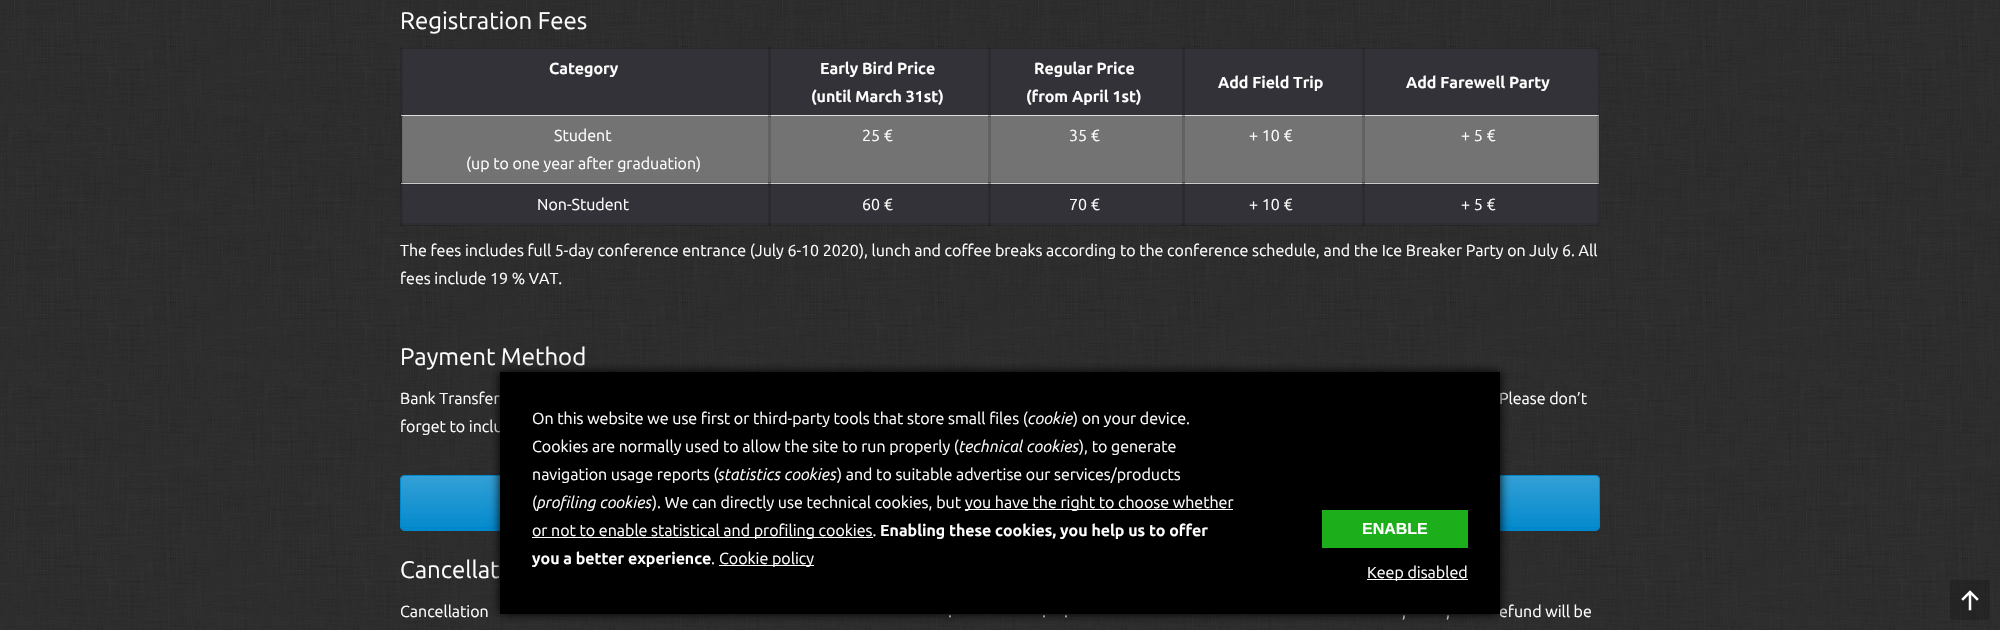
void draw(SkCanvas* canvas) {
	SkPaint paint;
	paint.setAntiAlias(true);
	auto svgPath = [&](const char* data, bool evenOdd = false) {
		SkPath result = *SkParsePath::FromSVGString(data);
		if (evenOdd) result.setFillType(SkPathFillType::kEvenOdd);
		return result;
	};
	canvas->clear(0xffffffff);
	canvas->drawImageRect(SkImages::DeferredFromEncodedData(SkData::MakeFromFileName("img1.png")), SkRect::MakeXYWH(0, 0, 2000, 630), SkSamplingOptions());
	SkFont f1(fontMgr->matchFamilyStyle("Ubuntu", SkFontStyle::Normal()), 24);
	f1.setSubpixel(true);
	paint.setColor(0xffffffff);
	canvas->drawString("Registration Fees", 400, 29, f1, paint);
	paint.setColor(0x14000000);
	canvas->drawRect(SkRect::MakeXYWH(400, 225, 1200, 1), paint);
	paint.setColor(0xff323238);
	canvas->drawRect(SkRect::MakeXYWH(402, 49, 1197, 66), paint);
	paint.setColor(0x14000000);
	canvas->drawRect(SkRect::MakeXYWH(1363, 48, 236, 1), paint);
	canvas->drawRect(SkRect::MakeXYWH(1183, 48, 181, 1), paint);
	canvas->drawRect(SkRect::MakeXYWH(989, 48, 195, 1), paint);
	canvas->drawRect(SkRect::MakeXYWH(769, 48, 221, 1), paint);
	canvas->drawRect(SkRect::MakeXYWH(401, 48, 369, 1), paint);
	paint.setColor(0xffdddddd);
	canvas->drawRect(SkRect::MakeXYWH(401, 115, 1198, 1), paint);
	paint.setColor(0xff737373);
	canvas->drawRect(SkRect::MakeXYWH(402, 116, 1197, 67), paint);
	paint.setColor(0xff323238);
	canvas->drawRect(SkRect::MakeXYWH(402, 184, 1197, 41), paint);
	paint.setColor(0xffdddddd);
	canvas->drawRect(SkRect::MakeXYWH(401, 183, 1198, 1), paint);
	paint.setColor(0x14000000);
	canvas->drawRect(SkRect::MakeXYWH(1597, 182, 3, 44), paint);
	canvas->drawRect(SkRect::MakeXYWH(1597, 114, 3, 71), paint);
	canvas->drawRect(SkRect::MakeXYWH(1362, 223, 238, 3), paint);
	canvas->drawRect(SkRect::MakeXYWH(1362, 182, 3, 44), paint);
	canvas->drawRect(SkRect::MakeXYWH(1362, 182, 3, 44), paint);
	canvas->drawRect(SkRect::MakeXYWH(1362, 182, 238, 3), paint);
	canvas->drawRect(SkRect::MakeXYWH(1362, 114, 3, 71), paint);
	canvas->drawRect(SkRect::MakeXYWH(1362, 114, 3, 71), paint);
	canvas->drawRect(SkRect::MakeXYWH(1182, 223, 183, 3), paint);
	canvas->drawRect(SkRect::MakeXYWH(1182, 182, 3, 44), paint);
	canvas->drawRect(SkRect::MakeXYWH(1182, 182, 3, 44), paint);
	canvas->drawRect(SkRect::MakeXYWH(1182, 182, 183, 3), paint);
	canvas->drawRect(SkRect::MakeXYWH(1182, 114, 3, 71), paint);
	canvas->drawRect(SkRect::MakeXYWH(1182, 114, 3, 71), paint);
	canvas->drawRect(SkRect::MakeXYWH(988, 223, 197, 3), paint);
	canvas->drawRect(SkRect::MakeXYWH(988, 182, 3, 44), paint);
	canvas->drawRect(SkRect::MakeXYWH(988, 182, 3, 44), paint);
	canvas->drawRect(SkRect::MakeXYWH(988, 182, 197, 3), paint);
	canvas->drawRect(SkRect::MakeXYWH(988, 114, 3, 71), paint);
	canvas->drawRect(SkRect::MakeXYWH(988, 114, 3, 71), paint);
	canvas->drawRect(SkRect::MakeXYWH(768, 223, 223, 3), paint);
	canvas->drawRect(SkRect::MakeXYWH(768, 182, 3, 44), paint);
	canvas->drawRect(SkRect::MakeXYWH(768, 182, 3, 44), paint);
	canvas->drawRect(SkRect::MakeXYWH(768, 182, 223, 3), paint);
	canvas->drawRect(SkRect::MakeXYWH(768, 114, 3, 71), paint);
	canvas->drawRect(SkRect::MakeXYWH(768, 114, 3, 71), paint);
	canvas->drawRect(SkRect::MakeXYWH(768, 47, 3, 70), paint);
	canvas->drawRect(SkRect::MakeXYWH(768, 47, 3, 70), paint);
	canvas->drawRect(SkRect::MakeXYWH(400, 223, 371, 3), paint);
	canvas->drawRect(SkRect::MakeXYWH(400, 182, 3, 44), paint);
	canvas->drawRect(SkRect::MakeXYWH(400, 182, 371, 3), paint);
	canvas->drawRect(SkRect::MakeXYWH(400, 114, 3, 71), paint);
	canvas->drawRect(SkRect::MakeXYWH(400, 47, 3, 70), paint);
	SkFont f2(fontMgr->matchFamilyStyle("Ubuntu", SkFontStyle::Bold()), 16);
	f2.setSubpixel(true);
	paint.setColor(0xffffffff);
	canvas->drawString("Category", 549, 74, f2, paint);
	paint.setColor(0x14000000);
	canvas->drawRect(SkRect::MakeXYWH(988, 47, 3, 70), paint);
	canvas->drawRect(SkRect::MakeXYWH(988, 47, 3, 70), paint);
	paint.setColor(0xffffffff);
	canvas->drawString("Early Bird Price", 820, 74, f2, paint);
	canvas->drawString("(until March 31st)", 811, 102, f2, paint);
	paint.setColor(0x14000000);
	canvas->drawRect(SkRect::MakeXYWH(1182, 47, 3, 70), paint);
	canvas->drawRect(SkRect::MakeXYWH(1182, 47, 3, 70), paint);
	paint.setColor(0xffffffff);
	canvas->drawString("Regular Price", 1034, 74, f2, paint);
	canvas->drawString("(from April 1st)", 1026, 102, f2, paint);
	paint.setColor(0x14000000);
	canvas->drawRect(SkRect::MakeXYWH(1362, 47, 3, 70), paint);
	canvas->drawRect(SkRect::MakeXYWH(1362, 47, 3, 70), paint);
	paint.setColor(0xffffffff);
	canvas->drawString("Add Field Trip", 1218, 88, f2, paint);
	paint.setColor(0x14000000);
	canvas->drawRect(SkRect::MakeXYWH(1597, 47, 3, 70), paint);
	paint.setColor(0xffffffff);
	canvas->drawString("Add Farewell Party", 1406, 88, f2, paint);
	SkFont f3(fontMgr->matchFamilyStyle("Ubuntu", SkFontStyle::Normal()), 16);
	f3.setSubpixel(true);
	canvas->drawString("Student", 554, 141, f3, paint);
	canvas->drawString("(up to one year after graduation)", 466, 169, f3, paint);
	canvas->drawString("25 €", 862, 141, f3, paint);
	canvas->drawString("35 €", 1069, 141, f3, paint);
	canvas->drawString("+ 10 €", 1249, 141, f3, paint);
	canvas->drawString("+ 5 €", 1461, 141, f3, paint);
	canvas->drawString("Non-Student", 537, 210, f3, paint);
	canvas->drawString("60 €", 862, 210, f3, paint);
	canvas->drawString("70 €", 1069, 210, f3, paint);
	canvas->drawString("+ 10 €", 1249, 210, f3, paint);
	canvas->drawString("+ 5 €", 1461, 210, f3, paint);
	canvas->drawString("The fees includes full 5-day conference entrance (July 6-10 2020), lunch and coffee breaks according to the conference schedule, and the Ice Breaker Party on July 6. All", 400, 256, f3, paint);
	canvas->drawString("fees include 19 % VAT.", 400, 284, f3, paint);
	canvas->drawString("Payment Method", 400, 365, f1, paint);
	canvas->drawString("Bank Transfer", 400, 404, f3, paint);
	canvas->drawString("Please don’t", 1499, 404, f3, paint);
	canvas->drawString("forget to inclu", 400, 432, f3, paint);
	paint.setColor(0xff0088cc);
	canvas->drawRoundRect(SkRect::MakeXYWH(400, 475, 1200, 56), 5, 5, paint);
	canvas->save();
	canvas->clipPath(svgPath("M405 475H1595C1598 475 1600 477 1600 480V526C1600 529 1598 531 1595 531H405C402 531 400 529 400 526V480C400 477 402 475 405 475Z"), true);
	{
		const SkColor colors[] = {0x33ffffff, 0x03ffffff};
		const float stops[] = {0, 1};
		const SkPoint ends[] = {{1000, 476}, {1000, 530}};
		paint.setShader(SkGradientShader::MakeLinear(ends, colors, stops, 2, SkTileMode::kClamp));
		paint.setAlpha(255);
	}
	canvas->drawRect(SkRect::MakeXYWH(400, 476, 1200, 51), paint);
	canvas->restore();
	paint.setStroke(true);
	paint.setStrokeWidth(1);
	paint.setShader(nullptr);
	paint.setColor(0xff0088cc);
	canvas->drawRoundRect(SkRect::MakeXYWH(400.5, 475.5, 1199, 55), 4.5, 4.5, paint);
	paint.setStroke(false);
	paint.setColor(0xffffffff);
	canvas->drawString("Cancellat", 400, 578, f1, paint);
	canvas->drawString("Cancellation", 400, 617, f3, paint);
	canvas->drawString(".", 948, 617, f3, paint);
	canvas->drawString(".", 1042, 617, f3, paint);
	canvas->drawString(".", 1064, 617, f3, paint);
	canvas->drawString(",", 1402, 617, f3, paint);
	canvas->drawString(",", 1446, 617, f3, paint);
	canvas->drawString("efund will be", 1499, 617, f3, paint);
	paint.setColor(0x33000000);
	canvas->drawRoundRect(SkRect::MakeXYWH(1950, 580, 40, 40), 2, 2, paint);
	canvas->drawImageRect(SkImages::DeferredFromEncodedData(SkData::MakeFromFileName("img2.png")), SkRect::MakeXYWH(1961, 590, 18, 21), SkSamplingOptions());
	paint.setColor(0xff000000);
	paint.setMaskFilter(SkMaskFilter::MakeBlur(kNormal_SkBlurStyle, 5));
	canvas->drawRect(SkRect::MakeXYWH(500, 372, 1000, 242), paint);
	paint.setMaskFilter(nullptr);
	canvas->drawRect(SkRect::MakeXYWH(500, 372, 1000, 242), paint);
	paint.setColor(0xffffffff);
	canvas->drawString("On this website we use first or third-party tools that store small files (", 532, 424, f3, paint);
	SkFont f4(fontMgr->matchFamilyStyle("Ubuntu", SkFontStyle::Italic()), 16);
	f4.setSubpixel(true);
	canvas->drawString("cookie", 1028, 424, f4, paint);
	canvas->drawString(") on your device.", 1073, 424, f3, paint);
	canvas->drawString("Cookies are normally used to allow the site to run properly (", 532, 452, f3, paint);
	canvas->drawString("technical cookies", 959, 452, f4, paint);
	canvas->drawString("), to generate", 1079, 452, f3, paint);
	canvas->drawString("navigation usage reports (", 532, 480, f3, paint);
	canvas->drawString("statistics cookies", 718, 480, f4, paint);
	canvas->drawString(") and to suitable advertise our services/products", 837, 480, f3, paint);
	canvas->drawString("(", 532, 508, f3, paint);
	canvas->drawString("profiling cookies", 537, 508, f4, paint);
	canvas->drawString("). We can directly use technical cookies, but", 652, 508, f3, paint);
	canvas->drawRect(SkRect::MakeXYWH(965, 509, 268, 1), paint);
	canvas->drawString("you have the right to choose whether", 965, 508, f3, paint);
	canvas->drawRect(SkRect::MakeXYWH(532, 537, 341, 1), paint);
	canvas->drawString("or not to enable statistical and profiling cookies.", 532, 536, f3, paint);
	canvas->drawString("Enabling these cookies, you help us to offer", 880, 536, f2, paint);
	canvas->drawString("you a better experience", 532, 564, f2, paint);
	canvas->drawString(".", 711, 564, f3, paint);
	canvas->drawRect(SkRect::MakeXYWH(719, 565, 95, 1), paint);
	canvas->drawString("Cookie policy", 719, 564, f3, paint);
	paint.setColor(0xff1dae1c);
	canvas->drawRect(SkRect::MakeXYWH(1322, 510, 146, 38), paint);
	SkFont f5(fontMgr->matchFamilyStyle("Liberation Sans", SkFontStyle::Bold()), 16);
	f5.setSubpixel(true);
	paint.setColor(0xffffffff);
	canvas->drawString("ENABLE", 1362, 534, f5, paint);
	canvas->drawRect(SkRect::MakeXYWH(1367, 579, 101, 1), paint);
	canvas->drawString("Keep disabled", 1367, 578, f3, paint);
}
